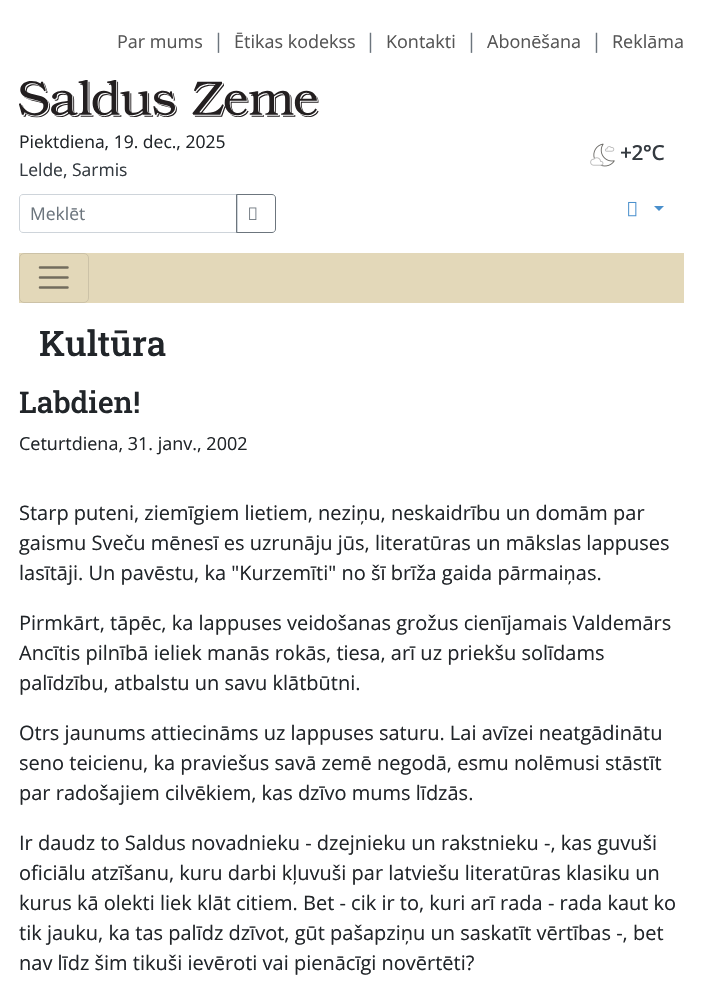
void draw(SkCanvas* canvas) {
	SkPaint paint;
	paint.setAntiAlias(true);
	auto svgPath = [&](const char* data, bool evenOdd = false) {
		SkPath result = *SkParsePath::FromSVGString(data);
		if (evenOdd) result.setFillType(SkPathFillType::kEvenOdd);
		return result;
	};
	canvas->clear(0xffffffff);
	SkFont f1(fontMgr->matchFamilyStyle("Open Sans", SkFontStyle::Normal()), 18);
	f1.setSubpixel(true);
	paint.setColor(0xff555555);
	canvas->drawString("Par mums", 117, 48, f1, paint);
	SkFont f2(fontMgr->matchFamilyStyle("Open Sans", SkFontStyle::Normal()), 20);
	f2.setSubpixel(true);
	paint.setColor(0xff6c757d);
	canvas->drawString("|", 213, 48, f2, paint);
	paint.setColor(0xff555555);
	canvas->drawString("Ētikas kodekss", 234, 48, f1, paint);
	paint.setColor(0xff6c757d);
	canvas->drawString("|", 365, 48, f2, paint);
	paint.setColor(0xff555555);
	canvas->drawString("Kontakti", 386, 48, f1, paint);
	paint.setColor(0xff6c757d);
	canvas->drawString("|", 466, 48, f2, paint);
	paint.setColor(0xff555555);
	canvas->drawString("Abonēšana", 487, 48, f1, paint);
	paint.setColor(0xff6c757d);
	canvas->drawString("|", 591, 48, f2, paint);
	paint.setColor(0xff555555);
	canvas->drawString("Reklāma", 612, 48, f1, paint);
	canvas->drawImageRect(SkImages::DeferredFromEncodedData(SkData::MakeFromFileName("img1.png")), SkRect::MakeXYWH(19, 80, 300, 38), SkSamplingOptions());
	SkFont f3(fontMgr->matchFamilyStyle("Open Sans", SkFontStyle::Normal()), 17.5);
	f3.setSubpixel(true);
	paint.setColor(0xff212529);
	canvas->drawString("Piektdiena, 19. dec., 2025", 19, 148, f3, paint);
	paint.setColor(0xff343a40);
	canvas->drawString("Lelde, Sarmis", 19, 176, f3, paint);
	canvas->drawImageRect(SkImages::DeferredFromEncodedData(SkData::MakeFromFileName("img2.png")), SkRect::MakeXYWH(590, 143, 25, 24), SkSamplingOptions());
	SkFont f4(fontMgr->matchFamilyStyle("Open Sans", SkFontStyle::Bold()), 20);
	f4.setSubpixel(true);
	canvas->drawString("+2°C", 620, 160, f4, paint);
	paint.setStroke(true);
	paint.setStrokeWidth(1);
	paint.setColor(0xffced4da);
	canvas->drawPath(svgPath("M23 194.5H237.5V232.5H23C21 232.5 19.5 231 19.5 229V198C19.5 196 21 194.5 23 194.5Z"), paint);
	paint.setStroke(false);
	paint.setColor(0xff6c757d);
	canvas->drawString("Meklēt", 30, 220, f3, paint);
	paint.setStroke(true);
	canvas->drawPath(svgPath("M236.5 194.5H272C274 194.5 275.5 196 275.5 198V229C275.5 231 274 232.5 272 232.5H236.5Z"), paint);
	canvas->drawImageRect(SkImages::DeferredFromEncodedData(SkData::MakeFromFileName("img3.png")), SkRect::MakeXYWH(249, 207, 8, 13), SkSamplingOptions());
	canvas->drawImageRect(SkImages::DeferredFromEncodedData(SkData::MakeFromFileName("img4.png")), SkRect::MakeXYWH(628, 201, 9, 16), SkSamplingOptions());
	paint.setStroke(false);
	paint.setColor(0xff498fcc);
	canvas->drawPath(svgPath("M654 206H664L659 211Z"), paint);
	paint.setColor(0xffe3d8b9);
	canvas->drawRect(SkRect::MakeXYWH(19, 253, 665, 50), paint);
	paint.setStroke(true);
	paint.setColor(0xffccc2a7);
	canvas->drawRoundRect(SkRect::MakeXYWH(19.5, 253.5, 69, 49), 4.5, 4.5, paint);
	paint.setStrokeWidth(2.5);
	paint.setStrokeCap(SkPaint::kRound_Cap);
	paint.setColor(0xff726c5d);
	canvas->drawPath(svgPath("M40 267.5H67.5M40 277.5H67.5M40 287.5H67.5"), paint);
	SkFont f5(fontMgr->matchFamilyStyle("Roboto Slab", SkFontStyle(500, SkFontStyle::kNormal_Width, SkFontStyle::kUpright_Slant)), 35);
	f5.setSubpixel(true);
	paint.setStroke(false);
	paint.setColor(0xff212529);
	canvas->drawString("Kultūra", 39, 356, f5, paint);
	SkFont f6(fontMgr->matchFamilyStyle("Roboto Slab", SkFontStyle(500, SkFontStyle::kNormal_Width, SkFontStyle::kUpright_Slant)), 30);
	f6.setSubpixel(true);
	canvas->drawString("Labdien!", 19, 413, f6, paint);
	canvas->drawString("Ceturtdiena, 31. janv., 2002", 19, 450, f1, paint);
	canvas->drawString("Starp puteni, ziemīgiem lietiem, neziņu, neskaidrību un domām par", 19, 520, f2, paint);
	canvas->drawString("gaismu Sveču mēnesī es uzrunāju jūs, literatūras un mākslas lappuses", 19, 550, f2, paint);
	canvas->drawString("lasītāji. Un pavēstu, ka \"Kurzemīti\" no šī brīža gaida pārmaiņas.", 19, 580, f2, paint);
	canvas->drawString("Pirmkārt, tāpēc, ka lappuses veidošanas grožus cienījamais Valdemārs", 19, 630, f2, paint);
	canvas->drawString("Ancītis pilnībā ieliek manās rokās, tiesa, arī uz priekšu solīdams", 19, 660, f2, paint);
	canvas->drawString("palīdzību, atbalstu un savu klātbūtni.", 19, 690, f2, paint);
	canvas->drawString("Otrs jaunums attiecināms uz lappuses saturu. Lai avīzei neatgādinātu", 19, 740, f2, paint);
	canvas->drawString("seno teicienu, ka praviešus savā zemē negodā, esmu nolēmusi stāstīt", 19, 770, f2, paint);
	canvas->drawString("par radošajiem cilvēkiem, kas dzīvo mums līdzās.", 19, 800, f2, paint);
	canvas->drawString("Ir daudz to Saldus novadnieku - dzejnieku un rakstnieku -, kas guvuši", 19, 850, f2, paint);
	canvas->drawString("oficiālu atzīšanu, kuru darbi kļuvuši par latviešu literatūras klasiku un", 19, 880, f2, paint);
	canvas->drawString("kurus kā olekti liek klāt citiem. Bet - cik ir to, kuri arī rada - rada kaut ko", 19, 910, f2, paint);
	canvas->drawString("tik jauku, ka tas palīdz dzīvot, gūt pašapziņu un saskatīt vērtības -, bet", 19, 940, f2, paint);
	canvas->drawString("nav līdz šim tikuši ievēroti vai pienācīgi novērtēti?", 19, 970, f2, paint);
}
